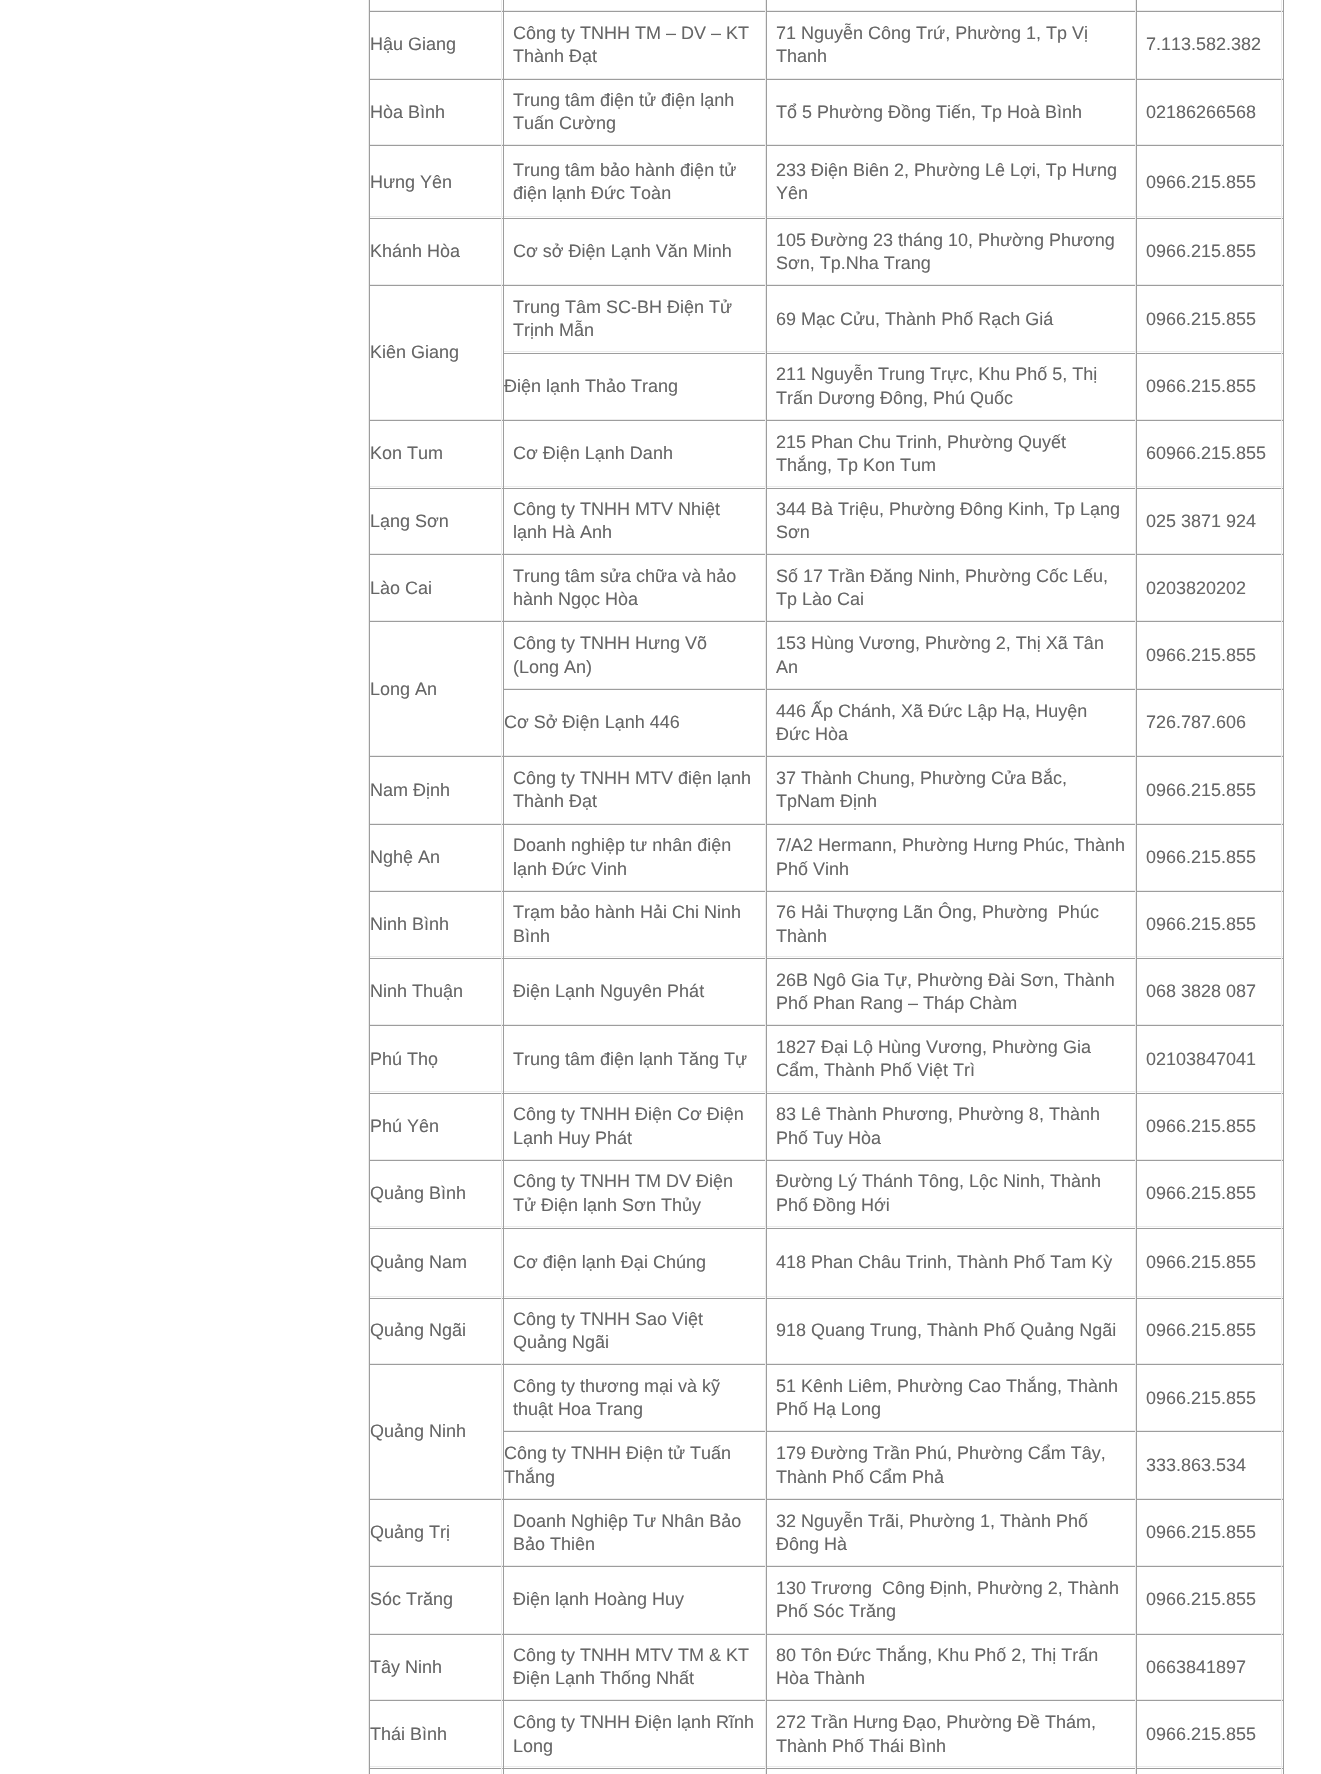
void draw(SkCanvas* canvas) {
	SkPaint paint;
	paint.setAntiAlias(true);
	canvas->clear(0xffffffff);
	paint.setColor(0xff9d9d9d);
	canvas->drawRect(SkRect::MakeXYWH(1283, 0, 1, 1774), paint);
	paint.setColor(0xffececec);
	canvas->drawRect(SkRect::MakeXYWH(368, 0, 1, 1774), paint);
	canvas->drawRect(SkRect::MakeXYWH(501, 0, 1, 11), paint);
	canvas->drawRect(SkRect::MakeXYWH(369, 10, 134, 1), paint);
	paint.setColor(0xff9d9d9d);
	canvas->drawRect(SkRect::MakeXYWH(369, 0, 1, 11), paint);
	paint.setColor(0xffececec);
	canvas->drawRect(SkRect::MakeXYWH(765, 0, 1, 11), paint);
	canvas->drawRect(SkRect::MakeXYWH(503, 10, 263, 1), paint);
	paint.setColor(0xff9d9d9d);
	canvas->drawRect(SkRect::MakeXYWH(503, 0, 1, 11), paint);
	paint.setColor(0xffececec);
	canvas->drawRect(SkRect::MakeXYWH(1135, 0, 1, 11), paint);
	canvas->drawRect(SkRect::MakeXYWH(766, 10, 370, 1), paint);
	paint.setColor(0xff9d9d9d);
	canvas->drawRect(SkRect::MakeXYWH(766, 0, 1, 11), paint);
	paint.setColor(0xffececec);
	canvas->drawRect(SkRect::MakeXYWH(1281, 0, 1, 11), paint);
	canvas->drawRect(SkRect::MakeXYWH(1136, 10, 147, 1), paint);
	paint.setColor(0xff9d9d9d);
	canvas->drawRect(SkRect::MakeXYWH(1136, 0, 1, 11), paint);
	canvas->drawRect(SkRect::MakeXYWH(369, 11, 914, 1), paint);
	paint.setColor(0xffececec);
	canvas->drawRect(SkRect::MakeXYWH(501, 11, 1, 68), paint);
	canvas->drawRect(SkRect::MakeXYWH(369, 78, 134, 1), paint);
	paint.setColor(0xff9d9d9d);
	canvas->drawRect(SkRect::MakeXYWH(369, 11, 1, 68), paint);
	SkFont f1(fontMgr->matchFamilyStyle("Liberation Sans", SkFontStyle::Normal()), 18);
	f1.setSubpixel(true);
	paint.setColor(0xff666666);
	canvas->drawString("Hậu Giang", 370, 50, f1, paint);
	paint.setColor(0xffececec);
	canvas->drawRect(SkRect::MakeXYWH(765, 11, 1, 68), paint);
	canvas->drawRect(SkRect::MakeXYWH(503, 78, 263, 1), paint);
	paint.setColor(0xff9d9d9d);
	canvas->drawRect(SkRect::MakeXYWH(503, 11, 1, 68), paint);
	paint.setColor(0xff666666);
	canvas->drawString("Công ty TNHH TM – DV – KT", 513, 39, f1, paint);
	canvas->drawString("Thành Đạt", 513, 62, f1, paint);
	paint.setColor(0xffececec);
	canvas->drawRect(SkRect::MakeXYWH(1135, 11, 1, 68), paint);
	canvas->drawRect(SkRect::MakeXYWH(766, 78, 370, 1), paint);
	paint.setColor(0xff9d9d9d);
	canvas->drawRect(SkRect::MakeXYWH(766, 11, 1, 68), paint);
	paint.setColor(0xff666666);
	canvas->drawString("71 Nguyễn Công Trứ, Phường 1, Tp Vị", 776, 39, f1, paint);
	canvas->drawString("Thanh", 776, 62, f1, paint);
	paint.setColor(0xffececec);
	canvas->drawRect(SkRect::MakeXYWH(1281, 11, 1, 68), paint);
	canvas->drawRect(SkRect::MakeXYWH(1136, 78, 147, 1), paint);
	paint.setColor(0xff9d9d9d);
	canvas->drawRect(SkRect::MakeXYWH(1136, 11, 1, 68), paint);
	paint.setColor(0xff666666);
	canvas->drawString("7.113.582.382", 1146, 50, f1, paint);
	paint.setColor(0xff9d9d9d);
	canvas->drawRect(SkRect::MakeXYWH(369, 79, 914, 1), paint);
	paint.setColor(0xffececec);
	canvas->drawRect(SkRect::MakeXYWH(501, 79, 1, 66), paint);
	canvas->drawRect(SkRect::MakeXYWH(369, 144, 134, 1), paint);
	paint.setColor(0xff9d9d9d);
	canvas->drawRect(SkRect::MakeXYWH(369, 79, 1, 66), paint);
	paint.setColor(0xff666666);
	canvas->drawString("Hòa Bình", 370, 118, f1, paint);
	paint.setColor(0xffececec);
	canvas->drawRect(SkRect::MakeXYWH(765, 79, 1, 66), paint);
	canvas->drawRect(SkRect::MakeXYWH(503, 144, 263, 1), paint);
	paint.setColor(0xff9d9d9d);
	canvas->drawRect(SkRect::MakeXYWH(503, 79, 1, 66), paint);
	paint.setColor(0xff666666);
	canvas->drawString("Trung tâm điện tử điện lạnh", 513, 106, f1, paint);
	canvas->drawString("Tuấn Cường", 513, 129, f1, paint);
	paint.setColor(0xffececec);
	canvas->drawRect(SkRect::MakeXYWH(1135, 79, 1, 66), paint);
	canvas->drawRect(SkRect::MakeXYWH(766, 144, 370, 1), paint);
	paint.setColor(0xff9d9d9d);
	canvas->drawRect(SkRect::MakeXYWH(766, 79, 1, 66), paint);
	paint.setColor(0xff666666);
	canvas->drawString("Tổ 5 Phường Đồng Tiến, Tp Hoà Bình", 776, 118, f1, paint);
	paint.setColor(0xffececec);
	canvas->drawRect(SkRect::MakeXYWH(1281, 79, 1, 66), paint);
	canvas->drawRect(SkRect::MakeXYWH(1136, 144, 147, 1), paint);
	paint.setColor(0xff9d9d9d);
	canvas->drawRect(SkRect::MakeXYWH(1136, 79, 1, 66), paint);
	paint.setColor(0xff666666);
	canvas->drawString("02186266568", 1146, 118, f1, paint);
	paint.setColor(0xff9d9d9d);
	canvas->drawRect(SkRect::MakeXYWH(369, 145, 914, 1), paint);
	paint.setColor(0xffececec);
	canvas->drawRect(SkRect::MakeXYWH(501, 145, 1, 73), paint);
	canvas->drawRect(SkRect::MakeXYWH(369, 216, 134, 1), paint);
	paint.setColor(0xff9d9d9d);
	canvas->drawRect(SkRect::MakeXYWH(369, 145, 1, 73), paint);
	paint.setColor(0xff666666);
	canvas->drawString("Hưng Yên", 370, 188, f1, paint);
	paint.setColor(0xffececec);
	canvas->drawRect(SkRect::MakeXYWH(765, 145, 1, 73), paint);
	canvas->drawRect(SkRect::MakeXYWH(503, 216, 263, 1), paint);
	paint.setColor(0xff9d9d9d);
	canvas->drawRect(SkRect::MakeXYWH(503, 145, 1, 73), paint);
	paint.setColor(0xff666666);
	canvas->drawString("Trung tâm bảo hành điện tử", 513, 176, f1, paint);
	canvas->drawString("điện lạnh Đức Toàn", 513, 199, f1, paint);
	paint.setColor(0xffececec);
	canvas->drawRect(SkRect::MakeXYWH(1135, 145, 1, 73), paint);
	canvas->drawRect(SkRect::MakeXYWH(766, 216, 370, 1), paint);
	paint.setColor(0xff9d9d9d);
	canvas->drawRect(SkRect::MakeXYWH(766, 145, 1, 73), paint);
	paint.setColor(0xff666666);
	canvas->drawString("233 Điện Biên 2, Phường Lê Lợi, Tp Hưng", 776, 176, f1, paint);
	canvas->drawString("Yên", 776, 199, f1, paint);
	paint.setColor(0xffececec);
	canvas->drawRect(SkRect::MakeXYWH(1281, 145, 1, 73), paint);
	canvas->drawRect(SkRect::MakeXYWH(1136, 216, 147, 1), paint);
	paint.setColor(0xff9d9d9d);
	canvas->drawRect(SkRect::MakeXYWH(1136, 145, 1, 73), paint);
	paint.setColor(0xff666666);
	canvas->drawString("0966.215.855", 1146, 188, f1, paint);
	paint.setColor(0xff9d9d9d);
	canvas->drawRect(SkRect::MakeXYWH(369, 218, 914, 1), paint);
	paint.setColor(0xffececec);
	canvas->drawRect(SkRect::MakeXYWH(501, 218, 1, 67), paint);
	canvas->drawRect(SkRect::MakeXYWH(369, 284, 134, 1), paint);
	paint.setColor(0xff9d9d9d);
	canvas->drawRect(SkRect::MakeXYWH(369, 218, 1, 67), paint);
	paint.setColor(0xff666666);
	canvas->drawString("Khánh Hòa", 370, 257, f1, paint);
	paint.setColor(0xffececec);
	canvas->drawRect(SkRect::MakeXYWH(765, 218, 1, 67), paint);
	canvas->drawRect(SkRect::MakeXYWH(503, 284, 263, 1), paint);
	paint.setColor(0xff9d9d9d);
	canvas->drawRect(SkRect::MakeXYWH(503, 218, 1, 67), paint);
	paint.setColor(0xff666666);
	canvas->drawString("Cơ sở Điện Lạnh Văn Minh", 513, 257, f1, paint);
	paint.setColor(0xffececec);
	canvas->drawRect(SkRect::MakeXYWH(1135, 218, 1, 67), paint);
	canvas->drawRect(SkRect::MakeXYWH(766, 284, 370, 1), paint);
	paint.setColor(0xff9d9d9d);
	canvas->drawRect(SkRect::MakeXYWH(766, 218, 1, 67), paint);
	paint.setColor(0xff666666);
	canvas->drawString("105 Đường 23 tháng 10, Phường Phương", 776, 246, f1, paint);
	canvas->drawString("Sơn, Tp.Nha Trang", 776, 269, f1, paint);
	paint.setColor(0xffececec);
	canvas->drawRect(SkRect::MakeXYWH(1281, 218, 1, 67), paint);
	canvas->drawRect(SkRect::MakeXYWH(1136, 284, 147, 1), paint);
	paint.setColor(0xff9d9d9d);
	canvas->drawRect(SkRect::MakeXYWH(1136, 218, 1, 67), paint);
	paint.setColor(0xff666666);
	canvas->drawString("0966.215.855", 1146, 257, f1, paint);
	paint.setColor(0xff9d9d9d);
	canvas->drawRect(SkRect::MakeXYWH(369, 285, 914, 1), paint);
	paint.setColor(0xffececec);
	canvas->drawRect(SkRect::MakeXYWH(765, 285, 1, 68), paint);
	canvas->drawRect(SkRect::MakeXYWH(503, 351, 263, 1), paint);
	paint.setColor(0xff9d9d9d);
	canvas->drawRect(SkRect::MakeXYWH(503, 285, 1, 68), paint);
	paint.setColor(0xff666666);
	canvas->drawString("Trung Tâm SC-BH Điện Tử", 513, 313, f1, paint);
	canvas->drawString("Trịnh Mẫn", 513, 336, f1, paint);
	paint.setColor(0xffececec);
	canvas->drawRect(SkRect::MakeXYWH(1135, 285, 1, 68), paint);
	canvas->drawRect(SkRect::MakeXYWH(766, 351, 370, 1), paint);
	paint.setColor(0xff9d9d9d);
	canvas->drawRect(SkRect::MakeXYWH(766, 285, 1, 68), paint);
	paint.setColor(0xff666666);
	canvas->drawString("69 Mạc Cửu, Thành Phố Rạch Giá", 776, 325, f1, paint);
	paint.setColor(0xffececec);
	canvas->drawRect(SkRect::MakeXYWH(1281, 285, 1, 68), paint);
	canvas->drawRect(SkRect::MakeXYWH(1136, 351, 147, 1), paint);
	paint.setColor(0xff9d9d9d);
	canvas->drawRect(SkRect::MakeXYWH(1136, 285, 1, 68), paint);
	paint.setColor(0xff666666);
	canvas->drawString("0966.215.855", 1146, 325, f1, paint);
	paint.setColor(0xffececec);
	canvas->drawRect(SkRect::MakeXYWH(501, 285, 1, 135), paint);
	canvas->drawRect(SkRect::MakeXYWH(369, 419, 134, 1), paint);
	paint.setColor(0xff9d9d9d);
	canvas->drawRect(SkRect::MakeXYWH(369, 285, 1, 135), paint);
	paint.setColor(0xff666666);
	canvas->drawString("Kiên Giang", 370, 358, f1, paint);
	paint.setColor(0xff9d9d9d);
	canvas->drawRect(SkRect::MakeXYWH(503, 353, 780, 1), paint);
	paint.setColor(0xffececec);
	canvas->drawRect(SkRect::MakeXYWH(765, 353, 1, 67), paint);
	canvas->drawRect(SkRect::MakeXYWH(503, 419, 263, 1), paint);
	paint.setColor(0xff9d9d9d);
	canvas->drawRect(SkRect::MakeXYWH(503, 353, 1, 67), paint);
	paint.setColor(0xff666666);
	canvas->drawString("Điện lạnh Thảo Trang", 504, 392, f1, paint);
	paint.setColor(0xffececec);
	canvas->drawRect(SkRect::MakeXYWH(1135, 353, 1, 67), paint);
	canvas->drawRect(SkRect::MakeXYWH(766, 419, 370, 1), paint);
	paint.setColor(0xff9d9d9d);
	canvas->drawRect(SkRect::MakeXYWH(766, 353, 1, 67), paint);
	paint.setColor(0xff666666);
	canvas->drawString("211 Nguyễn Trung Trực, Khu Phố 5, Thị", 776, 380, f1, paint);
	canvas->drawString("Trấn Dương Đông, Phú Quốc", 776, 404, f1, paint);
	paint.setColor(0xffececec);
	canvas->drawRect(SkRect::MakeXYWH(1281, 353, 1, 67), paint);
	canvas->drawRect(SkRect::MakeXYWH(1136, 419, 147, 1), paint);
	paint.setColor(0xff9d9d9d);
	canvas->drawRect(SkRect::MakeXYWH(1136, 353, 1, 67), paint);
	paint.setColor(0xff666666);
	canvas->drawString("0966.215.855", 1146, 392, f1, paint);
	paint.setColor(0xff9d9d9d);
	canvas->drawRect(SkRect::MakeXYWH(369, 420, 914, 1), paint);
	paint.setColor(0xffececec);
	canvas->drawRect(SkRect::MakeXYWH(501, 420, 1, 68), paint);
	canvas->drawRect(SkRect::MakeXYWH(369, 486, 134, 1), paint);
	paint.setColor(0xff9d9d9d);
	canvas->drawRect(SkRect::MakeXYWH(369, 420, 1, 68), paint);
	paint.setColor(0xff666666);
	canvas->drawString("Kon Tum", 370, 459, f1, paint);
	paint.setColor(0xffececec);
	canvas->drawRect(SkRect::MakeXYWH(765, 420, 1, 68), paint);
	canvas->drawRect(SkRect::MakeXYWH(503, 486, 263, 1), paint);
	paint.setColor(0xff9d9d9d);
	canvas->drawRect(SkRect::MakeXYWH(503, 420, 1, 68), paint);
	paint.setColor(0xff666666);
	canvas->drawString("Cơ Điện Lạnh Danh", 513, 459, f1, paint);
	paint.setColor(0xffececec);
	canvas->drawRect(SkRect::MakeXYWH(1135, 420, 1, 68), paint);
	canvas->drawRect(SkRect::MakeXYWH(766, 486, 370, 1), paint);
	paint.setColor(0xff9d9d9d);
	canvas->drawRect(SkRect::MakeXYWH(766, 420, 1, 68), paint);
	paint.setColor(0xff666666);
	canvas->drawString("215 Phan Chu Trinh, Phường Quyết", 776, 448, f1, paint);
	canvas->drawString("Thắng, Tp Kon Tum", 776, 471, f1, paint);
	paint.setColor(0xffececec);
	canvas->drawRect(SkRect::MakeXYWH(1281, 420, 1, 68), paint);
	canvas->drawRect(SkRect::MakeXYWH(1136, 486, 147, 1), paint);
	paint.setColor(0xff9d9d9d);
	canvas->drawRect(SkRect::MakeXYWH(1136, 420, 1, 68), paint);
	paint.setColor(0xff666666);
	canvas->drawString("60966.215.855", 1146, 459, f1, paint);
	paint.setColor(0xff9d9d9d);
	canvas->drawRect(SkRect::MakeXYWH(369, 488, 914, 1), paint);
	paint.setColor(0xffececec);
	canvas->drawRect(SkRect::MakeXYWH(501, 488, 1, 66), paint);
	canvas->drawRect(SkRect::MakeXYWH(369, 553, 134, 1), paint);
	paint.setColor(0xff9d9d9d);
	canvas->drawRect(SkRect::MakeXYWH(369, 488, 1, 66), paint);
	paint.setColor(0xff666666);
	canvas->drawString("Lạng Sơn", 370, 527, f1, paint);
	paint.setColor(0xffececec);
	canvas->drawRect(SkRect::MakeXYWH(765, 488, 1, 66), paint);
	canvas->drawRect(SkRect::MakeXYWH(503, 553, 263, 1), paint);
	paint.setColor(0xff9d9d9d);
	canvas->drawRect(SkRect::MakeXYWH(503, 488, 1, 66), paint);
	paint.setColor(0xff666666);
	canvas->drawString("Công ty TNHH MTV Nhiệt", 513, 515, f1, paint);
	canvas->drawString("lạnh Hà Anh", 513, 538, f1, paint);
	paint.setColor(0xffececec);
	canvas->drawRect(SkRect::MakeXYWH(1135, 488, 1, 66), paint);
	canvas->drawRect(SkRect::MakeXYWH(766, 553, 370, 1), paint);
	paint.setColor(0xff9d9d9d);
	canvas->drawRect(SkRect::MakeXYWH(766, 488, 1, 66), paint);
	paint.setColor(0xff666666);
	canvas->drawString("344 Bà Triệu, Phường Đông Kinh, Tp Lạng", 776, 515, f1, paint);
	canvas->drawString("Sơn", 776, 538, f1, paint);
	paint.setColor(0xffececec);
	canvas->drawRect(SkRect::MakeXYWH(1281, 488, 1, 66), paint);
	canvas->drawRect(SkRect::MakeXYWH(1136, 553, 147, 1), paint);
	paint.setColor(0xff9d9d9d);
	canvas->drawRect(SkRect::MakeXYWH(1136, 488, 1, 66), paint);
	paint.setColor(0xff666666);
	canvas->drawString("025 3871 924", 1146, 527, f1, paint);
	paint.setColor(0xff9d9d9d);
	canvas->drawRect(SkRect::MakeXYWH(369, 554, 914, 1), paint);
	paint.setColor(0xffececec);
	canvas->drawRect(SkRect::MakeXYWH(501, 554, 1, 67), paint);
	canvas->drawRect(SkRect::MakeXYWH(369, 620, 134, 1), paint);
	paint.setColor(0xff9d9d9d);
	canvas->drawRect(SkRect::MakeXYWH(369, 554, 1, 67), paint);
	paint.setColor(0xff666666);
	canvas->drawString("Lào Cai", 370, 594, f1, paint);
	paint.setColor(0xffececec);
	canvas->drawRect(SkRect::MakeXYWH(765, 554, 1, 67), paint);
	canvas->drawRect(SkRect::MakeXYWH(503, 620, 263, 1), paint);
	paint.setColor(0xff9d9d9d);
	canvas->drawRect(SkRect::MakeXYWH(503, 554, 1, 67), paint);
	paint.setColor(0xff666666);
	canvas->drawString("Trung tâm sửa chữa và hảo", 513, 582, f1, paint);
	canvas->drawString("hành Ngọc Hòa", 513, 605, f1, paint);
	paint.setColor(0xffececec);
	canvas->drawRect(SkRect::MakeXYWH(1135, 554, 1, 67), paint);
	canvas->drawRect(SkRect::MakeXYWH(766, 620, 370, 1), paint);
	paint.setColor(0xff9d9d9d);
	canvas->drawRect(SkRect::MakeXYWH(766, 554, 1, 67), paint);
	paint.setColor(0xff666666);
	canvas->drawString("Số 17 Trần Đăng Ninh, Phường Cốc Lếu,", 776, 582, f1, paint);
	canvas->drawString("Tp Lào Cai", 776, 605, f1, paint);
	paint.setColor(0xffececec);
	canvas->drawRect(SkRect::MakeXYWH(1281, 554, 1, 67), paint);
	canvas->drawRect(SkRect::MakeXYWH(1136, 620, 147, 1), paint);
	paint.setColor(0xff9d9d9d);
	canvas->drawRect(SkRect::MakeXYWH(1136, 554, 1, 67), paint);
	paint.setColor(0xff666666);
	canvas->drawString("0203820202", 1146, 594, f1, paint);
	paint.setColor(0xff9d9d9d);
	canvas->drawRect(SkRect::MakeXYWH(369, 621, 914, 1), paint);
	paint.setColor(0xffececec);
	canvas->drawRect(SkRect::MakeXYWH(765, 621, 1, 68), paint);
	canvas->drawRect(SkRect::MakeXYWH(503, 688, 263, 1), paint);
	paint.setColor(0xff9d9d9d);
	canvas->drawRect(SkRect::MakeXYWH(503, 621, 1, 68), paint);
	paint.setColor(0xff666666);
	canvas->drawString("Công ty TNHH Hưng Võ", 513, 649, f1, paint);
	canvas->drawString("(Long An)", 513, 673, f1, paint);
	paint.setColor(0xffececec);
	canvas->drawRect(SkRect::MakeXYWH(1135, 621, 1, 68), paint);
	canvas->drawRect(SkRect::MakeXYWH(766, 688, 370, 1), paint);
	paint.setColor(0xff9d9d9d);
	canvas->drawRect(SkRect::MakeXYWH(766, 621, 1, 68), paint);
	paint.setColor(0xff666666);
	canvas->drawString("153 Hùng Vương, Phường 2, Thị Xã Tân", 776, 649, f1, paint);
	canvas->drawString("An", 776, 673, f1, paint);
	paint.setColor(0xffececec);
	canvas->drawRect(SkRect::MakeXYWH(1281, 621, 1, 68), paint);
	canvas->drawRect(SkRect::MakeXYWH(1136, 688, 147, 1), paint);
	paint.setColor(0xff9d9d9d);
	canvas->drawRect(SkRect::MakeXYWH(1136, 621, 1, 68), paint);
	paint.setColor(0xff666666);
	canvas->drawString("0966.215.855", 1146, 661, f1, paint);
	paint.setColor(0xffececec);
	canvas->drawRect(SkRect::MakeXYWH(501, 621, 1, 135), paint);
	canvas->drawRect(SkRect::MakeXYWH(369, 755, 134, 1), paint);
	paint.setColor(0xff9d9d9d);
	canvas->drawRect(SkRect::MakeXYWH(369, 621, 1, 135), paint);
	paint.setColor(0xff666666);
	canvas->drawString("Long An", 370, 695, f1, paint);
	paint.setColor(0xff9d9d9d);
	canvas->drawRect(SkRect::MakeXYWH(503, 689, 780, 1), paint);
	paint.setColor(0xffececec);
	canvas->drawRect(SkRect::MakeXYWH(765, 689, 1, 67), paint);
	canvas->drawRect(SkRect::MakeXYWH(503, 755, 263, 1), paint);
	paint.setColor(0xff9d9d9d);
	canvas->drawRect(SkRect::MakeXYWH(503, 689, 1, 67), paint);
	paint.setColor(0xff666666);
	canvas->drawString("Cơ Sở Điện Lạnh 446", 504, 728, f1, paint);
	paint.setColor(0xffececec);
	canvas->drawRect(SkRect::MakeXYWH(1135, 689, 1, 67), paint);
	canvas->drawRect(SkRect::MakeXYWH(766, 755, 370, 1), paint);
	paint.setColor(0xff9d9d9d);
	canvas->drawRect(SkRect::MakeXYWH(766, 689, 1, 67), paint);
	paint.setColor(0xff666666);
	canvas->drawString("446 Ấp Chánh, Xã Đức Lập Hạ, Huyện", 776, 717, f1, paint);
	canvas->drawString("Đức Hòa", 776, 740, f1, paint);
	paint.setColor(0xffececec);
	canvas->drawRect(SkRect::MakeXYWH(1281, 689, 1, 67), paint);
	canvas->drawRect(SkRect::MakeXYWH(1136, 755, 147, 1), paint);
	paint.setColor(0xff9d9d9d);
	canvas->drawRect(SkRect::MakeXYWH(1136, 689, 1, 67), paint);
	paint.setColor(0xff666666);
	canvas->drawString("726.787.606", 1146, 728, f1, paint);
	paint.setColor(0xff9d9d9d);
	canvas->drawRect(SkRect::MakeXYWH(369, 756, 914, 1), paint);
	paint.setColor(0xffececec);
	canvas->drawRect(SkRect::MakeXYWH(501, 756, 1, 68), paint);
	canvas->drawRect(SkRect::MakeXYWH(369, 823, 134, 1), paint);
	paint.setColor(0xff9d9d9d);
	canvas->drawRect(SkRect::MakeXYWH(369, 756, 1, 68), paint);
	paint.setColor(0xff666666);
	canvas->drawString("Nam Định", 370, 796, f1, paint);
	paint.setColor(0xffececec);
	canvas->drawRect(SkRect::MakeXYWH(765, 756, 1, 68), paint);
	canvas->drawRect(SkRect::MakeXYWH(503, 823, 263, 1), paint);
	paint.setColor(0xff9d9d9d);
	canvas->drawRect(SkRect::MakeXYWH(503, 756, 1, 68), paint);
	paint.setColor(0xff666666);
	canvas->drawString("Công ty TNHH MTV điện lạnh", 513, 784, f1, paint);
	canvas->drawString("Thành Đạt", 513, 807, f1, paint);
	paint.setColor(0xffececec);
	canvas->drawRect(SkRect::MakeXYWH(1135, 756, 1, 68), paint);
	canvas->drawRect(SkRect::MakeXYWH(766, 823, 370, 1), paint);
	paint.setColor(0xff9d9d9d);
	canvas->drawRect(SkRect::MakeXYWH(766, 756, 1, 68), paint);
	paint.setColor(0xff666666);
	canvas->drawString("37 Thành Chung, Phường Cửa Bắc,", 776, 784, f1, paint);
	canvas->drawString("TpNam Định", 776, 807, f1, paint);
	paint.setColor(0xffececec);
	canvas->drawRect(SkRect::MakeXYWH(1281, 756, 1, 68), paint);
	canvas->drawRect(SkRect::MakeXYWH(1136, 823, 147, 1), paint);
	paint.setColor(0xff9d9d9d);
	canvas->drawRect(SkRect::MakeXYWH(1136, 756, 1, 68), paint);
	paint.setColor(0xff666666);
	canvas->drawString("0966.215.855", 1146, 796, f1, paint);
	paint.setColor(0xff9d9d9d);
	canvas->drawRect(SkRect::MakeXYWH(369, 824, 914, 1), paint);
	paint.setColor(0xffececec);
	canvas->drawRect(SkRect::MakeXYWH(501, 824, 1, 67), paint);
	canvas->drawRect(SkRect::MakeXYWH(369, 890, 134, 1), paint);
	paint.setColor(0xff9d9d9d);
	canvas->drawRect(SkRect::MakeXYWH(369, 824, 1, 67), paint);
	paint.setColor(0xff666666);
	canvas->drawString("Nghệ An", 370, 863, f1, paint);
	paint.setColor(0xffececec);
	canvas->drawRect(SkRect::MakeXYWH(765, 824, 1, 67), paint);
	canvas->drawRect(SkRect::MakeXYWH(503, 890, 263, 1), paint);
	paint.setColor(0xff9d9d9d);
	canvas->drawRect(SkRect::MakeXYWH(503, 824, 1, 67), paint);
	paint.setColor(0xff666666);
	canvas->drawString("Doanh nghiệp tư nhân điện", 513, 851, f1, paint);
	canvas->drawString("lạnh Đức Vinh", 513, 875, f1, paint);
	paint.setColor(0xffececec);
	canvas->drawRect(SkRect::MakeXYWH(1135, 824, 1, 67), paint);
	canvas->drawRect(SkRect::MakeXYWH(766, 890, 370, 1), paint);
	paint.setColor(0xff9d9d9d);
	canvas->drawRect(SkRect::MakeXYWH(766, 824, 1, 67), paint);
	paint.setColor(0xff666666);
	canvas->drawString("7/A2 Hermann, Phường Hưng Phúc, Thành", 776, 851, f1, paint);
	canvas->drawString("Phố Vinh", 776, 875, f1, paint);
	paint.setColor(0xffececec);
	canvas->drawRect(SkRect::MakeXYWH(1281, 824, 1, 67), paint);
	canvas->drawRect(SkRect::MakeXYWH(1136, 890, 147, 1), paint);
	paint.setColor(0xff9d9d9d);
	canvas->drawRect(SkRect::MakeXYWH(1136, 824, 1, 67), paint);
	paint.setColor(0xff666666);
	canvas->drawString("0966.215.855", 1146, 863, f1, paint);
	paint.setColor(0xff9d9d9d);
	canvas->drawRect(SkRect::MakeXYWH(369, 891, 914, 1), paint);
	paint.setColor(0xffececec);
	canvas->drawRect(SkRect::MakeXYWH(501, 891, 1, 67), paint);
	canvas->drawRect(SkRect::MakeXYWH(369, 956, 134, 1), paint);
	paint.setColor(0xff9d9d9d);
	canvas->drawRect(SkRect::MakeXYWH(369, 891, 1, 67), paint);
	paint.setColor(0xff666666);
	canvas->drawString("Ninh Bình", 370, 930, f1, paint);
	paint.setColor(0xffececec);
	canvas->drawRect(SkRect::MakeXYWH(765, 891, 1, 67), paint);
	canvas->drawRect(SkRect::MakeXYWH(503, 956, 263, 1), paint);
	paint.setColor(0xff9d9d9d);
	canvas->drawRect(SkRect::MakeXYWH(503, 891, 1, 67), paint);
	paint.setColor(0xff666666);
	canvas->drawString("Trạm bảo hành Hải Chi Ninh", 513, 918, f1, paint);
	canvas->drawString("Bình", 513, 942, f1, paint);
	paint.setColor(0xffececec);
	canvas->drawRect(SkRect::MakeXYWH(1135, 891, 1, 67), paint);
	canvas->drawRect(SkRect::MakeXYWH(766, 956, 370, 1), paint);
	paint.setColor(0xff9d9d9d);
	canvas->drawRect(SkRect::MakeXYWH(766, 891, 1, 67), paint);
	paint.setColor(0xff666666);
	canvas->drawString("76 Hải Thượng Lãn Ông, Phường  Phúc", 776, 918, f1, paint);
	canvas->drawString("Thành", 776, 942, f1, paint);
	paint.setColor(0xffececec);
	canvas->drawRect(SkRect::MakeXYWH(1281, 891, 1, 67), paint);
	canvas->drawRect(SkRect::MakeXYWH(1136, 956, 147, 1), paint);
	paint.setColor(0xff9d9d9d);
	canvas->drawRect(SkRect::MakeXYWH(1136, 891, 1, 67), paint);
	paint.setColor(0xff666666);
	canvas->drawString("0966.215.855", 1146, 930, f1, paint);
	paint.setColor(0xff9d9d9d);
	canvas->drawRect(SkRect::MakeXYWH(369, 958, 914, 1), paint);
	paint.setColor(0xffececec);
	canvas->drawRect(SkRect::MakeXYWH(501, 958, 1, 67), paint);
	canvas->drawRect(SkRect::MakeXYWH(369, 1024, 134, 1), paint);
	paint.setColor(0xff9d9d9d);
	canvas->drawRect(SkRect::MakeXYWH(369, 958, 1, 67), paint);
	paint.setColor(0xff666666);
	canvas->drawString("Ninh Thuận", 370, 997, f1, paint);
	paint.setColor(0xffececec);
	canvas->drawRect(SkRect::MakeXYWH(765, 958, 1, 67), paint);
	canvas->drawRect(SkRect::MakeXYWH(503, 1024, 263, 1), paint);
	paint.setColor(0xff9d9d9d);
	canvas->drawRect(SkRect::MakeXYWH(503, 958, 1, 67), paint);
	paint.setColor(0xff666666);
	canvas->drawString("Điện Lạnh Nguyên Phát", 513, 997, f1, paint);
	paint.setColor(0xffececec);
	canvas->drawRect(SkRect::MakeXYWH(1135, 958, 1, 67), paint);
	canvas->drawRect(SkRect::MakeXYWH(766, 1024, 370, 1), paint);
	paint.setColor(0xff9d9d9d);
	canvas->drawRect(SkRect::MakeXYWH(766, 958, 1, 67), paint);
	paint.setColor(0xff666666);
	canvas->drawString("26B Ngô Gia Tự, Phường Đài Sơn, Thành", 776, 986, f1, paint);
	canvas->drawString("Phố Phan Rang – Tháp Chàm", 776, 1009, f1, paint);
	paint.setColor(0xffececec);
	canvas->drawRect(SkRect::MakeXYWH(1281, 958, 1, 67), paint);
	canvas->drawRect(SkRect::MakeXYWH(1136, 1024, 147, 1), paint);
	paint.setColor(0xff9d9d9d);
	canvas->drawRect(SkRect::MakeXYWH(1136, 958, 1, 67), paint);
	paint.setColor(0xff666666);
	canvas->drawString("068 3828 087", 1146, 997, f1, paint);
	paint.setColor(0xff9d9d9d);
	canvas->drawRect(SkRect::MakeXYWH(369, 1025, 914, 1), paint);
	paint.setColor(0xffececec);
	canvas->drawRect(SkRect::MakeXYWH(501, 1025, 1, 68), paint);
	canvas->drawRect(SkRect::MakeXYWH(369, 1091, 134, 1), paint);
	paint.setColor(0xff9d9d9d);
	canvas->drawRect(SkRect::MakeXYWH(369, 1025, 1, 68), paint);
	paint.setColor(0xff666666);
	canvas->drawString("Phú Thọ", 370, 1065, f1, paint);
	paint.setColor(0xffececec);
	canvas->drawRect(SkRect::MakeXYWH(765, 1025, 1, 68), paint);
	canvas->drawRect(SkRect::MakeXYWH(503, 1091, 263, 1), paint);
	paint.setColor(0xff9d9d9d);
	canvas->drawRect(SkRect::MakeXYWH(503, 1025, 1, 68), paint);
	paint.setColor(0xff666666);
	canvas->drawString("Trung tâm điện lạnh Tăng Tự", 513, 1065, f1, paint);
	paint.setColor(0xffececec);
	canvas->drawRect(SkRect::MakeXYWH(1135, 1025, 1, 68), paint);
	canvas->drawRect(SkRect::MakeXYWH(766, 1091, 370, 1), paint);
	paint.setColor(0xff9d9d9d);
	canvas->drawRect(SkRect::MakeXYWH(766, 1025, 1, 68), paint);
	paint.setColor(0xff666666);
	canvas->drawString("1827 Đại Lộ Hùng Vương, Phường Gia", 776, 1053, f1, paint);
	canvas->drawString("Cẩm, Thành Phố Việt Trì", 776, 1076, f1, paint);
	paint.setColor(0xffececec);
	canvas->drawRect(SkRect::MakeXYWH(1281, 1025, 1, 68), paint);
	canvas->drawRect(SkRect::MakeXYWH(1136, 1091, 147, 1), paint);
	paint.setColor(0xff9d9d9d);
	canvas->drawRect(SkRect::MakeXYWH(1136, 1025, 1, 68), paint);
	paint.setColor(0xff666666);
	canvas->drawString("02103847041", 1146, 1065, f1, paint);
	paint.setColor(0xff9d9d9d);
	canvas->drawRect(SkRect::MakeXYWH(369, 1093, 914, 1), paint);
	paint.setColor(0xffececec);
	canvas->drawRect(SkRect::MakeXYWH(501, 1093, 1, 67), paint);
	canvas->drawRect(SkRect::MakeXYWH(369, 1159, 134, 1), paint);
	paint.setColor(0xff9d9d9d);
	canvas->drawRect(SkRect::MakeXYWH(369, 1093, 1, 67), paint);
	paint.setColor(0xff666666);
	canvas->drawString("Phú Yên", 370, 1132, f1, paint);
	paint.setColor(0xffececec);
	canvas->drawRect(SkRect::MakeXYWH(765, 1093, 1, 67), paint);
	canvas->drawRect(SkRect::MakeXYWH(503, 1159, 263, 1), paint);
	paint.setColor(0xff9d9d9d);
	canvas->drawRect(SkRect::MakeXYWH(503, 1093, 1, 67), paint);
	paint.setColor(0xff666666);
	canvas->drawString("Công ty TNHH Điện Cơ Điện", 513, 1120, f1, paint);
	canvas->drawString("Lạnh Huy Phát", 513, 1144, f1, paint);
	paint.setColor(0xffececec);
	canvas->drawRect(SkRect::MakeXYWH(1135, 1093, 1, 67), paint);
	canvas->drawRect(SkRect::MakeXYWH(766, 1159, 370, 1), paint);
	paint.setColor(0xff9d9d9d);
	canvas->drawRect(SkRect::MakeXYWH(766, 1093, 1, 67), paint);
	paint.setColor(0xff666666);
	canvas->drawString("83 Lê Thành Phương, Phường 8, Thành", 776, 1120, f1, paint);
	canvas->drawString("Phố Tuy Hòa", 776, 1144, f1, paint);
	paint.setColor(0xffececec);
	canvas->drawRect(SkRect::MakeXYWH(1281, 1093, 1, 67), paint);
	canvas->drawRect(SkRect::MakeXYWH(1136, 1159, 147, 1), paint);
	paint.setColor(0xff9d9d9d);
	canvas->drawRect(SkRect::MakeXYWH(1136, 1093, 1, 67), paint);
	paint.setColor(0xff666666);
	canvas->drawString("0966.215.855", 1146, 1132, f1, paint);
	paint.setColor(0xff9d9d9d);
	canvas->drawRect(SkRect::MakeXYWH(369, 1160, 914, 1), paint);
	paint.setColor(0xffececec);
	canvas->drawRect(SkRect::MakeXYWH(501, 1160, 1, 68), paint);
	canvas->drawRect(SkRect::MakeXYWH(369, 1226, 134, 1), paint);
	paint.setColor(0xff9d9d9d);
	canvas->drawRect(SkRect::MakeXYWH(369, 1160, 1, 68), paint);
	paint.setColor(0xff666666);
	canvas->drawString("Quảng Bình", 370, 1199, f1, paint);
	paint.setColor(0xffececec);
	canvas->drawRect(SkRect::MakeXYWH(765, 1160, 1, 68), paint);
	canvas->drawRect(SkRect::MakeXYWH(503, 1226, 263, 1), paint);
	paint.setColor(0xff9d9d9d);
	canvas->drawRect(SkRect::MakeXYWH(503, 1160, 1, 68), paint);
	paint.setColor(0xff666666);
	canvas->drawString("Công ty TNHH TM DV Điện", 513, 1187, f1, paint);
	canvas->drawString("Tử Điện lạnh Sơn Thủy", 513, 1211, f1, paint);
	paint.setColor(0xffececec);
	canvas->drawRect(SkRect::MakeXYWH(1135, 1160, 1, 68), paint);
	canvas->drawRect(SkRect::MakeXYWH(766, 1226, 370, 1), paint);
	paint.setColor(0xff9d9d9d);
	canvas->drawRect(SkRect::MakeXYWH(766, 1160, 1, 68), paint);
	paint.setColor(0xff666666);
	canvas->drawString("Đường Lý Thánh Tông, Lộc Ninh, Thành", 776, 1187, f1, paint);
	canvas->drawString("Phố Đồng Hới", 776, 1211, f1, paint);
	paint.setColor(0xffececec);
	canvas->drawRect(SkRect::MakeXYWH(1281, 1160, 1, 68), paint);
	canvas->drawRect(SkRect::MakeXYWH(1136, 1226, 147, 1), paint);
	paint.setColor(0xff9d9d9d);
	canvas->drawRect(SkRect::MakeXYWH(1136, 1160, 1, 68), paint);
	paint.setColor(0xff666666);
	canvas->drawString("0966.215.855", 1146, 1199, f1, paint);
	paint.setColor(0xff9d9d9d);
	canvas->drawRect(SkRect::MakeXYWH(369, 1228, 914, 1), paint);
	paint.setColor(0xffececec);
	canvas->drawRect(SkRect::MakeXYWH(501, 1228, 1, 70), paint);
	canvas->drawRect(SkRect::MakeXYWH(369, 1296, 134, 1), paint);
	paint.setColor(0xff9d9d9d);
	canvas->drawRect(SkRect::MakeXYWH(369, 1228, 1, 70), paint);
	paint.setColor(0xff666666);
	canvas->drawString("Quảng Nam", 370, 1268, f1, paint);
	paint.setColor(0xffececec);
	canvas->drawRect(SkRect::MakeXYWH(765, 1228, 1, 70), paint);
	canvas->drawRect(SkRect::MakeXYWH(503, 1296, 263, 1), paint);
	paint.setColor(0xff9d9d9d);
	canvas->drawRect(SkRect::MakeXYWH(503, 1228, 1, 70), paint);
	paint.setColor(0xff666666);
	canvas->drawString("Cơ điện lạnh Đại Chúng", 513, 1268, f1, paint);
	paint.setColor(0xffececec);
	canvas->drawRect(SkRect::MakeXYWH(1135, 1228, 1, 70), paint);
	canvas->drawRect(SkRect::MakeXYWH(766, 1296, 370, 1), paint);
	paint.setColor(0xff9d9d9d);
	canvas->drawRect(SkRect::MakeXYWH(766, 1228, 1, 70), paint);
	paint.setColor(0xff666666);
	canvas->drawString("418 Phan Châu Trinh, Thành Phố Tam Kỳ", 776, 1268, f1, paint);
	paint.setColor(0xffececec);
	canvas->drawRect(SkRect::MakeXYWH(1281, 1228, 1, 70), paint);
	canvas->drawRect(SkRect::MakeXYWH(1136, 1296, 147, 1), paint);
	paint.setColor(0xff9d9d9d);
	canvas->drawRect(SkRect::MakeXYWH(1136, 1228, 1, 70), paint);
	paint.setColor(0xff666666);
	canvas->drawString("0966.215.855", 1146, 1268, f1, paint);
	paint.setColor(0xff9d9d9d);
	canvas->drawRect(SkRect::MakeXYWH(369, 1298, 914, 1), paint);
	paint.setColor(0xffececec);
	canvas->drawRect(SkRect::MakeXYWH(501, 1298, 1, 66), paint);
	canvas->drawRect(SkRect::MakeXYWH(369, 1363, 134, 1), paint);
	paint.setColor(0xff9d9d9d);
	canvas->drawRect(SkRect::MakeXYWH(369, 1298, 1, 66), paint);
	paint.setColor(0xff666666);
	canvas->drawString("Quảng Ngãi", 370, 1336, f1, paint);
	paint.setColor(0xffececec);
	canvas->drawRect(SkRect::MakeXYWH(765, 1298, 1, 66), paint);
	canvas->drawRect(SkRect::MakeXYWH(503, 1363, 263, 1), paint);
	paint.setColor(0xff9d9d9d);
	canvas->drawRect(SkRect::MakeXYWH(503, 1298, 1, 66), paint);
	paint.setColor(0xff666666);
	canvas->drawString("Công ty TNHH Sao Việt", 513, 1325, f1, paint);
	canvas->drawString("Quảng Ngãi", 513, 1348, f1, paint);
	paint.setColor(0xffececec);
	canvas->drawRect(SkRect::MakeXYWH(1135, 1298, 1, 66), paint);
	canvas->drawRect(SkRect::MakeXYWH(766, 1363, 370, 1), paint);
	paint.setColor(0xff9d9d9d);
	canvas->drawRect(SkRect::MakeXYWH(766, 1298, 1, 66), paint);
	paint.setColor(0xff666666);
	canvas->drawString("918 Quang Trung, Thành Phố Quảng Ngãi", 776, 1336, f1, paint);
	paint.setColor(0xffececec);
	canvas->drawRect(SkRect::MakeXYWH(1281, 1298, 1, 66), paint);
	canvas->drawRect(SkRect::MakeXYWH(1136, 1363, 147, 1), paint);
	paint.setColor(0xff9d9d9d);
	canvas->drawRect(SkRect::MakeXYWH(1136, 1298, 1, 66), paint);
	paint.setColor(0xff666666);
	canvas->drawString("0966.215.855", 1146, 1336, f1, paint);
	paint.setColor(0xff9d9d9d);
	canvas->drawRect(SkRect::MakeXYWH(369, 1364, 914, 1), paint);
	paint.setColor(0xffececec);
	canvas->drawRect(SkRect::MakeXYWH(765, 1364, 1, 67), paint);
	canvas->drawRect(SkRect::MakeXYWH(503, 1430, 263, 1), paint);
	paint.setColor(0xff9d9d9d);
	canvas->drawRect(SkRect::MakeXYWH(503, 1364, 1, 67), paint);
	paint.setColor(0xff666666);
	canvas->drawString("Công ty thương mại và kỹ", 513, 1392, f1, paint);
	canvas->drawString("thuật Hoa Trang", 513, 1415, f1, paint);
	paint.setColor(0xffececec);
	canvas->drawRect(SkRect::MakeXYWH(1135, 1364, 1, 67), paint);
	canvas->drawRect(SkRect::MakeXYWH(766, 1430, 370, 1), paint);
	paint.setColor(0xff9d9d9d);
	canvas->drawRect(SkRect::MakeXYWH(766, 1364, 1, 67), paint);
	paint.setColor(0xff666666);
	canvas->drawString("51 Kênh Liêm, Phường Cao Thắng, Thành", 776, 1392, f1, paint);
	canvas->drawString("Phố Hạ Long", 776, 1415, f1, paint);
	paint.setColor(0xffececec);
	canvas->drawRect(SkRect::MakeXYWH(1281, 1364, 1, 67), paint);
	canvas->drawRect(SkRect::MakeXYWH(1136, 1430, 147, 1), paint);
	paint.setColor(0xff9d9d9d);
	canvas->drawRect(SkRect::MakeXYWH(1136, 1364, 1, 67), paint);
	paint.setColor(0xff666666);
	canvas->drawString("0966.215.855", 1146, 1404, f1, paint);
	paint.setColor(0xffececec);
	canvas->drawRect(SkRect::MakeXYWH(501, 1364, 1, 135), paint);
	canvas->drawRect(SkRect::MakeXYWH(369, 1498, 134, 1), paint);
	paint.setColor(0xff9d9d9d);
	canvas->drawRect(SkRect::MakeXYWH(369, 1364, 1, 135), paint);
	paint.setColor(0xff666666);
	canvas->drawString("Quảng Ninh", 370, 1437, f1, paint);
	paint.setColor(0xff9d9d9d);
	canvas->drawRect(SkRect::MakeXYWH(503, 1431, 780, 1), paint);
	paint.setColor(0xffececec);
	canvas->drawRect(SkRect::MakeXYWH(765, 1431, 1, 68), paint);
	canvas->drawRect(SkRect::MakeXYWH(503, 1498, 263, 1), paint);
	paint.setColor(0xff9d9d9d);
	canvas->drawRect(SkRect::MakeXYWH(503, 1431, 1, 68), paint);
	paint.setColor(0xff666666);
	canvas->drawString("Công ty TNHH Điện tử Tuấn", 504, 1459, f1, paint);
	canvas->drawString("Thắng", 504, 1483, f1, paint);
	paint.setColor(0xffececec);
	canvas->drawRect(SkRect::MakeXYWH(1135, 1431, 1, 68), paint);
	canvas->drawRect(SkRect::MakeXYWH(766, 1498, 370, 1), paint);
	paint.setColor(0xff9d9d9d);
	canvas->drawRect(SkRect::MakeXYWH(766, 1431, 1, 68), paint);
	paint.setColor(0xff666666);
	canvas->drawString("179 Đường Trần Phú, Phường Cẩm Tây,", 776, 1459, f1, paint);
	canvas->drawString("Thành Phố Cẩm Phả", 776, 1483, f1, paint);
	paint.setColor(0xffececec);
	canvas->drawRect(SkRect::MakeXYWH(1281, 1431, 1, 68), paint);
	canvas->drawRect(SkRect::MakeXYWH(1136, 1498, 147, 1), paint);
	paint.setColor(0xff9d9d9d);
	canvas->drawRect(SkRect::MakeXYWH(1136, 1431, 1, 68), paint);
	paint.setColor(0xff666666);
	canvas->drawString("333.863.534", 1146, 1471, f1, paint);
	paint.setColor(0xff9d9d9d);
	canvas->drawRect(SkRect::MakeXYWH(369, 1499, 914, 1), paint);
	paint.setColor(0xffececec);
	canvas->drawRect(SkRect::MakeXYWH(501, 1499, 1, 67), paint);
	canvas->drawRect(SkRect::MakeXYWH(369, 1565, 134, 1), paint);
	paint.setColor(0xff9d9d9d);
	canvas->drawRect(SkRect::MakeXYWH(369, 1499, 1, 67), paint);
	paint.setColor(0xff666666);
	canvas->drawString("Quảng Trị", 370, 1538, f1, paint);
	paint.setColor(0xffececec);
	canvas->drawRect(SkRect::MakeXYWH(765, 1499, 1, 67), paint);
	canvas->drawRect(SkRect::MakeXYWH(503, 1565, 263, 1), paint);
	paint.setColor(0xff9d9d9d);
	canvas->drawRect(SkRect::MakeXYWH(503, 1499, 1, 67), paint);
	paint.setColor(0xff666666);
	canvas->drawString("Doanh Nghiệp Tư Nhân Bảo", 513, 1527, f1, paint);
	canvas->drawString("Bảo Thiên", 513, 1550, f1, paint);
	paint.setColor(0xffececec);
	canvas->drawRect(SkRect::MakeXYWH(1135, 1499, 1, 67), paint);
	canvas->drawRect(SkRect::MakeXYWH(766, 1565, 370, 1), paint);
	paint.setColor(0xff9d9d9d);
	canvas->drawRect(SkRect::MakeXYWH(766, 1499, 1, 67), paint);
	paint.setColor(0xff666666);
	canvas->drawString("32 Nguyễn Trãi, Phường 1, Thành Phố", 776, 1527, f1, paint);
	canvas->drawString("Đông Hà", 776, 1550, f1, paint);
	paint.setColor(0xffececec);
	canvas->drawRect(SkRect::MakeXYWH(1281, 1499, 1, 67), paint);
	canvas->drawRect(SkRect::MakeXYWH(1136, 1565, 147, 1), paint);
	paint.setColor(0xff9d9d9d);
	canvas->drawRect(SkRect::MakeXYWH(1136, 1499, 1, 67), paint);
	paint.setColor(0xff666666);
	canvas->drawString("0966.215.855", 1146, 1538, f1, paint);
	paint.setColor(0xff9d9d9d);
	canvas->drawRect(SkRect::MakeXYWH(369, 1566, 914, 1), paint);
	paint.setColor(0xffececec);
	canvas->drawRect(SkRect::MakeXYWH(501, 1566, 1, 68), paint);
	canvas->drawRect(SkRect::MakeXYWH(369, 1633, 134, 1), paint);
	paint.setColor(0xff9d9d9d);
	canvas->drawRect(SkRect::MakeXYWH(369, 1566, 1, 68), paint);
	paint.setColor(0xff666666);
	canvas->drawString("Sóc Trăng", 370, 1605, f1, paint);
	paint.setColor(0xffececec);
	canvas->drawRect(SkRect::MakeXYWH(765, 1566, 1, 68), paint);
	canvas->drawRect(SkRect::MakeXYWH(503, 1633, 263, 1), paint);
	paint.setColor(0xff9d9d9d);
	canvas->drawRect(SkRect::MakeXYWH(503, 1566, 1, 68), paint);
	paint.setColor(0xff666666);
	canvas->drawString("Điện lạnh Hoàng Huy", 513, 1605, f1, paint);
	paint.setColor(0xffececec);
	canvas->drawRect(SkRect::MakeXYWH(1135, 1566, 1, 68), paint);
	canvas->drawRect(SkRect::MakeXYWH(766, 1633, 370, 1), paint);
	paint.setColor(0xff9d9d9d);
	canvas->drawRect(SkRect::MakeXYWH(766, 1566, 1, 68), paint);
	paint.setColor(0xff666666);
	canvas->drawString("130 Trương  Công Định, Phường 2, Thành", 776, 1594, f1, paint);
	canvas->drawString("Phố Sóc Trăng", 776, 1617, f1, paint);
	paint.setColor(0xffececec);
	canvas->drawRect(SkRect::MakeXYWH(1281, 1566, 1, 68), paint);
	canvas->drawRect(SkRect::MakeXYWH(1136, 1633, 147, 1), paint);
	paint.setColor(0xff9d9d9d);
	canvas->drawRect(SkRect::MakeXYWH(1136, 1566, 1, 68), paint);
	paint.setColor(0xff666666);
	canvas->drawString("0966.215.855", 1146, 1605, f1, paint);
	paint.setColor(0xff9d9d9d);
	canvas->drawRect(SkRect::MakeXYWH(369, 1634, 914, 1), paint);
	paint.setColor(0xffececec);
	canvas->drawRect(SkRect::MakeXYWH(501, 1634, 1, 66), paint);
	canvas->drawRect(SkRect::MakeXYWH(369, 1699, 134, 1), paint);
	paint.setColor(0xff9d9d9d);
	canvas->drawRect(SkRect::MakeXYWH(369, 1634, 1, 66), paint);
	paint.setColor(0xff666666);
	canvas->drawString("Tây Ninh", 370, 1673, f1, paint);
	paint.setColor(0xffececec);
	canvas->drawRect(SkRect::MakeXYWH(765, 1634, 1, 66), paint);
	canvas->drawRect(SkRect::MakeXYWH(503, 1699, 263, 1), paint);
	paint.setColor(0xff9d9d9d);
	canvas->drawRect(SkRect::MakeXYWH(503, 1634, 1, 66), paint);
	paint.setColor(0xff666666);
	canvas->drawString("Công ty TNHH MTV TM & KT", 513, 1661, f1, paint);
	canvas->drawString("Điện Lạnh Thống Nhất", 513, 1684, f1, paint);
	paint.setColor(0xffececec);
	canvas->drawRect(SkRect::MakeXYWH(1135, 1634, 1, 66), paint);
	canvas->drawRect(SkRect::MakeXYWH(766, 1699, 370, 1), paint);
	paint.setColor(0xff9d9d9d);
	canvas->drawRect(SkRect::MakeXYWH(766, 1634, 1, 66), paint);
	paint.setColor(0xff666666);
	canvas->drawString("80 Tôn Đức Thắng, Khu Phố 2, Thị Trấn", 776, 1661, f1, paint);
	canvas->drawString("Hòa Thành", 776, 1684, f1, paint);
	paint.setColor(0xffececec);
	canvas->drawRect(SkRect::MakeXYWH(1281, 1634, 1, 66), paint);
	canvas->drawRect(SkRect::MakeXYWH(1136, 1699, 147, 1), paint);
	paint.setColor(0xff9d9d9d);
	canvas->drawRect(SkRect::MakeXYWH(1136, 1634, 1, 66), paint);
	paint.setColor(0xff666666);
	canvas->drawString("0663841897", 1146, 1673, f1, paint);
	paint.setColor(0xff9d9d9d);
	canvas->drawRect(SkRect::MakeXYWH(369, 1700, 914, 1), paint);
	paint.setColor(0xffececec);
	canvas->drawRect(SkRect::MakeXYWH(501, 1700, 1, 68), paint);
	canvas->drawRect(SkRect::MakeXYWH(369, 1766, 134, 1), paint);
	paint.setColor(0xff9d9d9d);
	canvas->drawRect(SkRect::MakeXYWH(369, 1700, 1, 68), paint);
	paint.setColor(0xff666666);
	canvas->drawString("Thái Bình", 370, 1740, f1, paint);
	paint.setColor(0xffececec);
	canvas->drawRect(SkRect::MakeXYWH(765, 1700, 1, 68), paint);
	canvas->drawRect(SkRect::MakeXYWH(503, 1766, 263, 1), paint);
	paint.setColor(0xff9d9d9d);
	canvas->drawRect(SkRect::MakeXYWH(503, 1700, 1, 68), paint);
	paint.setColor(0xff666666);
	canvas->drawString("Công ty TNHH Điện lạnh Rĩnh", 513, 1728, f1, paint);
	canvas->drawString("Long", 513, 1752, f1, paint);
	paint.setColor(0xffececec);
	canvas->drawRect(SkRect::MakeXYWH(1135, 1700, 1, 68), paint);
	canvas->drawRect(SkRect::MakeXYWH(766, 1766, 370, 1), paint);
	paint.setColor(0xff9d9d9d);
	canvas->drawRect(SkRect::MakeXYWH(766, 1700, 1, 68), paint);
	paint.setColor(0xff666666);
	canvas->drawString("272 Trần Hưng Đạo, Phường Đề Thám,", 776, 1728, f1, paint);
	canvas->drawString("Thành Phố Thái Bình", 776, 1752, f1, paint);
	paint.setColor(0xffececec);
	canvas->drawRect(SkRect::MakeXYWH(1281, 1700, 1, 68), paint);
	canvas->drawRect(SkRect::MakeXYWH(1136, 1766, 147, 1), paint);
	paint.setColor(0xff9d9d9d);
	canvas->drawRect(SkRect::MakeXYWH(1136, 1700, 1, 68), paint);
	paint.setColor(0xff666666);
	canvas->drawString("0966.215.855", 1146, 1740, f1, paint);
	paint.setColor(0xff9d9d9d);
	canvas->drawRect(SkRect::MakeXYWH(369, 1768, 914, 1), paint);
	paint.setColor(0xffececec);
	canvas->drawRect(SkRect::MakeXYWH(501, 1768, 1, 6), paint);
	paint.setColor(0xff9d9d9d);
	canvas->drawRect(SkRect::MakeXYWH(369, 1768, 1, 6), paint);
	paint.setColor(0xffececec);
	canvas->drawRect(SkRect::MakeXYWH(765, 1768, 1, 6), paint);
	paint.setColor(0xff9d9d9d);
	canvas->drawRect(SkRect::MakeXYWH(503, 1768, 1, 6), paint);
	paint.setColor(0xffececec);
	canvas->drawRect(SkRect::MakeXYWH(1135, 1768, 1, 6), paint);
	paint.setColor(0xff9d9d9d);
	canvas->drawRect(SkRect::MakeXYWH(766, 1768, 1, 6), paint);
	paint.setColor(0xffececec);
	canvas->drawRect(SkRect::MakeXYWH(1281, 1768, 1, 6), paint);
	paint.setColor(0xff9d9d9d);
	canvas->drawRect(SkRect::MakeXYWH(1136, 1768, 1, 6), paint);
}
